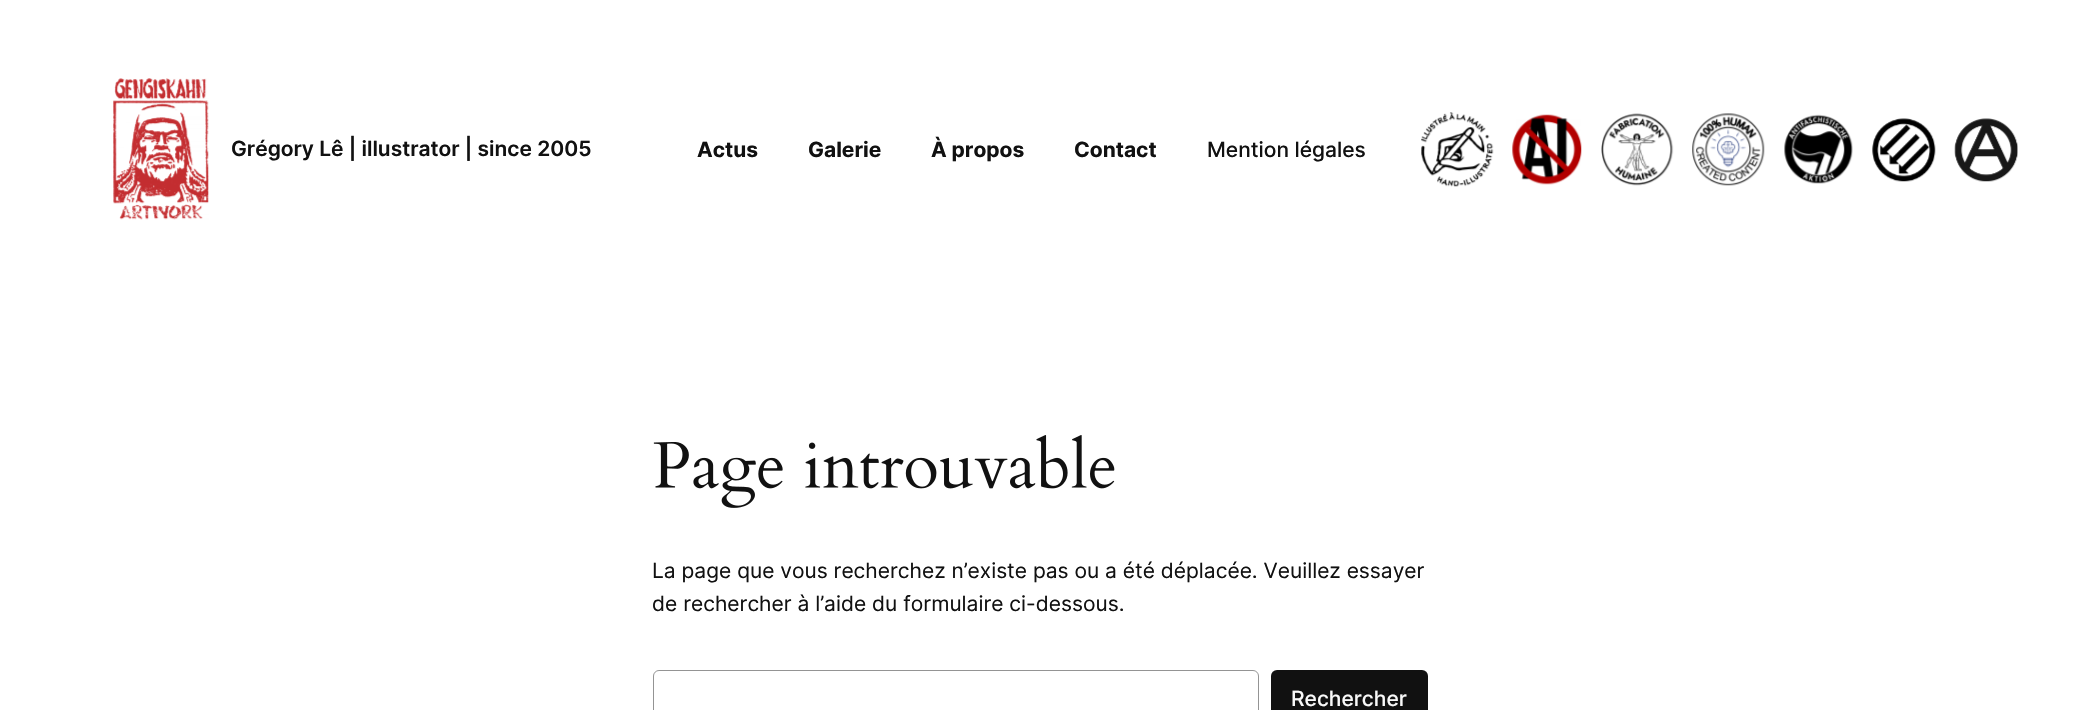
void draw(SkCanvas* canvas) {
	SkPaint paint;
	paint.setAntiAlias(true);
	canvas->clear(0xffffffff);
	canvas->drawImageRect(SkImages::DeferredFromEncodedData(SkData::MakeFromFileName("img1.png")), SkRect::MakeXYWH(113, 78, 96, 142), SkSamplingOptions());
	SkFont f1(fontMgr->matchFamilyStyle("Inter", SkFontStyle(600, SkFontStyle::kNormal_Width, SkFontStyle::kUpright_Slant)), 21);
	f1.setSubpixel(true);
	paint.setColor(0xff111111);
	canvas->drawString("Grégory Lê | illustrator | since 2005", 231, 156, f1, paint);
	SkFont f2(fontMgr->matchFamilyStyle("Inter", SkFontStyle::Bold()), 21);
	f2.setSubpixel(true);
	canvas->drawString("Actus", 697, 157, f2, paint);
	canvas->drawString("Galerie", 808, 157, f2, paint);
	canvas->drawString("À propos", 931, 157, f2, paint);
	canvas->drawString("Contact", 1074, 157, f2, paint);
	SkFont f3(fontMgr->matchFamilyStyle("Inter", SkFontStyle(500, SkFontStyle::kNormal_Width, SkFontStyle::kUpright_Slant)), 21);
	f3.setSubpixel(true);
	canvas->drawString("Mention légales", 1207, 157, f3, paint);
	canvas->drawImageRect(SkImages::DeferredFromEncodedData(SkData::MakeFromFileName("img2.png")), SkRect::MakeXYWH(1421, 112, 73, 75), SkSamplingOptions());
	canvas->drawImageRect(SkImages::DeferredFromEncodedData(SkData::MakeFromFileName("img3.png")), SkRect::MakeXYWH(1512, 114, 70, 71), SkSamplingOptions());
	canvas->drawImageRect(SkImages::DeferredFromEncodedData(SkData::MakeFromFileName("img4.png")), SkRect::MakeXYWH(1601, 113, 73, 73), SkSamplingOptions());
	canvas->drawImageRect(SkImages::DeferredFromEncodedData(SkData::MakeFromFileName("img5.png")), SkRect::MakeXYWH(1692, 113, 73, 73), SkSamplingOptions());
	canvas->drawImageRect(SkImages::DeferredFromEncodedData(SkData::MakeFromFileName("img6.png")), SkRect::MakeXYWH(1784, 114, 69, 70), SkSamplingOptions());
	canvas->drawImageRect(SkImages::DeferredFromEncodedData(SkData::MakeFromFileName("img7.png")), SkRect::MakeXYWH(1872, 118, 64, 64), SkSamplingOptions());
	canvas->drawImageRect(SkImages::DeferredFromEncodedData(SkData::MakeFromFileName("img8.png")), SkRect::MakeXYWH(1954, 118, 64, 64), SkSamplingOptions());
	canvas->drawImageRect(SkImages::DeferredFromEncodedData(SkData::MakeFromFileName("img9.png")), SkRect::MakeXYWH(653, 435, 462, 73), SkSamplingOptions());
	SkFont f4(fontMgr->matchFamilyStyle("Inter", SkFontStyle::Normal()), 21);
	f4.setSubpixel(true);
	canvas->drawString("La page que vous recherchez n’existe pas ou a été déplacée. Veuillez essayer", 652, 578, f4, paint);
	canvas->drawString("de rechercher à l’aide du formulaire ci-dessous.", 652, 611, f4, paint);
	paint.setStroke(true);
	paint.setStrokeWidth(1);
	paint.setColor(0xff949494);
	canvas->drawRoundRect(SkRect::MakeXYWH(653.5, 670.5, 605, 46), 5.5, 5.5, paint);
	paint.setStroke(false);
	paint.setColor(0xff111111);
	canvas->drawRoundRect(SkRect::MakeXYWH(1271, 670, 157, 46), 6, 6, paint);
	paint.setColor(0xfff9f9f9);
	canvas->drawString("Rechercher", 1291, 706, f3, paint);
}
